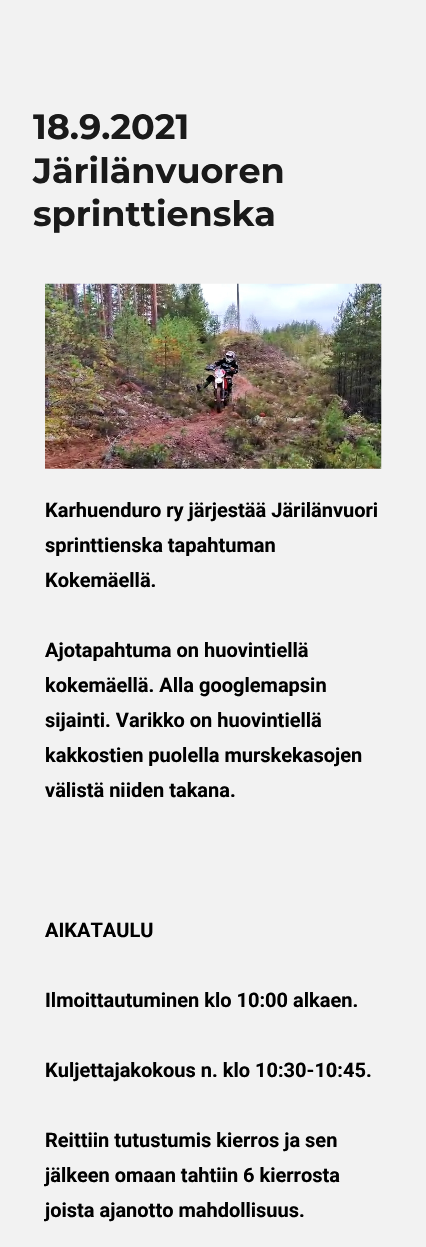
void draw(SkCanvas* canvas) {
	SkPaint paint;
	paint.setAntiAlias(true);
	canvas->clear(0xfff2f2f2);
	SkFont f1(fontMgr->matchFamilyStyle("Montserrat", SkFontStyle::Bold()), 35);
	f1.setSubpixel(true);
	paint.setColor(0xff1a1a1a);
	canvas->drawString("18.9.2021", 33, 139, f1, paint);
	canvas->drawString("Järilänvuoren", 33, 183, f1, paint);
	canvas->drawString("sprinttienska", 33, 226, f1, paint);
	canvas->drawImageRect(SkImages::DeferredFromEncodedData(SkData::MakeFromFileName("img1.png")), SkRect::MakeXYWH(45, 283, 337, 186), SkSamplingOptions());
	SkFont f2(fontMgr->matchFamilyStyle("Roboto", SkFontStyle::Bold()), 20);
	f2.setSubpixel(true);
	paint.setColor(0xff000000);
	canvas->drawString("Karhuenduro ry järjestää Järilänvuori", 45, 517, f2, paint);
	canvas->drawString("sprinttienska tapahtuman", 45, 552, f2, paint);
	canvas->drawString("Kokemäellä.", 45, 587, f2, paint);
	canvas->drawString("Ajotapahtuma on huovintiellä", 45, 657, f2, paint);
	canvas->drawString("kokemäellä. Alla googlemapsin", 45, 692, f2, paint);
	canvas->drawString("sijainti. Varikko on huovintiellä", 45, 727, f2, paint);
	canvas->drawString("kakkostien puolella murskekasojen", 45, 762, f2, paint);
	canvas->drawString("välistä niiden takana.", 45, 797, f2, paint);
	canvas->drawString("AIKATAULU", 45, 937, f2, paint);
	canvas->drawString("Ilmoittautuminen klo 10:00 alkaen.", 45, 1007, f2, paint);
	canvas->drawString("Kuljettajakokous n. klo 10:30-10:45.", 45, 1077, f2, paint);
	canvas->drawString("Reittiin tutustumis kierros ja sen", 45, 1147, f2, paint);
	canvas->drawString("jälkeen omaan tahtiin 6 kierrosta", 45, 1182, f2, paint);
	canvas->drawString("joista ajanotto mahdollisuus.", 45, 1217, f2, paint);
}
